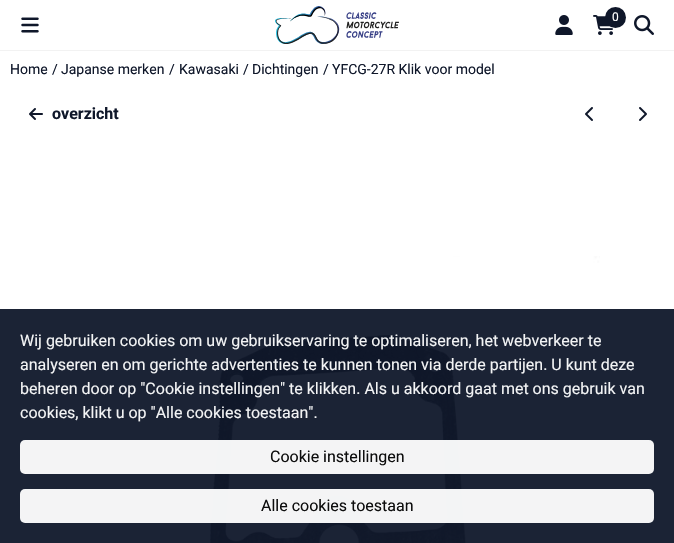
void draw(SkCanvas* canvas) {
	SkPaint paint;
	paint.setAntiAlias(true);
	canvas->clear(0xffffffff);
	paint.setColor(0xfff2f2f2);
	canvas->drawRect(SkRect::MakeXYWH(0, 50, 674, 1), paint);
	canvas->drawImageRect(SkImages::DeferredFromEncodedData(SkData::MakeFromFileName("img1.png")), SkRect::MakeXYWH(21, 17, 18, 16), SkSamplingOptions());
	canvas->drawImageRect(SkImages::DeferredFromEncodedData(SkData::MakeFromFileName("img2.png")), SkRect::MakeXYWH(275, 6, 124, 38), SkSamplingOptions());
	canvas->drawImageRect(SkImages::DeferredFromEncodedData(SkData::MakeFromFileName("img3.png")), SkRect::MakeXYWH(555, 15, 18, 20), SkSamplingOptions());
	canvas->drawImageRect(SkImages::DeferredFromEncodedData(SkData::MakeFromFileName("img4.png")), SkRect::MakeXYWH(593, 15, 20, 20), SkSamplingOptions());
	paint.setColor(0xff0f172a);
	canvas->drawCircle(615.5, 17.5, 10.5, paint);
	SkFont f1(fontMgr->matchFamilyStyle("Roboto", SkFontStyle::Normal()), 12);
	f1.setSubpixel(true);
	paint.setColor(0xffffffff);
	canvas->drawString("0", 612, 21, f1, paint);
	canvas->drawImageRect(SkImages::DeferredFromEncodedData(SkData::MakeFromFileName("img5.png")), SkRect::MakeXYWH(634, 15, 20, 20), SkSamplingOptions());
	SkFont f2(fontMgr->matchFamilyStyle("Roboto", SkFontStyle::Normal()), 14);
	f2.setSubpixel(true);
	paint.setColor(0xff0f172a);
	canvas->drawString("Home", 10, 74, f2, paint);
	canvas->drawString("/", 52, 74, f2, paint);
	canvas->drawString("Japanse merken", 61, 74, f2, paint);
	canvas->drawString("/", 169, 74, f2, paint);
	canvas->drawString("Kawasaki", 179, 74, f2, paint);
	canvas->drawString("/", 243, 74, f2, paint);
	canvas->drawString("Dichtingen", 252, 74, f2, paint);
	canvas->drawString("/", 323, 74, f2, paint);
	canvas->drawString("YFCG-27R Klik voor model", 332, 74, f2, paint);
	canvas->drawImageRect(SkImages::DeferredFromEncodedData(SkData::MakeFromFileName("img6.png")), SkRect::MakeXYWH(29, 108, 14, 12), SkSamplingOptions());
	SkFont f3(fontMgr->matchFamilyStyle("Roboto", SkFontStyle::Bold()), 16);
	f3.setSubpixel(true);
	canvas->drawString("overzicht", 52, 119, f3, paint);
	canvas->drawImageRect(SkImages::DeferredFromEncodedData(SkData::MakeFromFileName("img7.png")), SkRect::MakeXYWH(585, 107, 8, 14), SkSamplingOptions());
	canvas->drawImageRect(SkImages::DeferredFromEncodedData(SkData::MakeFromFileName("img8.png")), SkRect::MakeXYWH(639, 107, 8, 14), SkSamplingOptions());
	canvas->drawImageRect(SkImages::DeferredFromEncodedData(SkData::MakeFromFileName("img9.png")), SkRect::MakeXYWH(65, 256, 542, 287), SkSamplingOptions());
	paint.setColor(0xf20f172a);
	canvas->drawRect(SkRect::MakeXYWH(0, 309, 674, 234), paint);
	SkFont f4(fontMgr->matchFamilyStyle("Roboto", SkFontStyle::Normal()), 16);
	f4.setSubpixel(true);
	paint.setColor(0xfff3f4f5);
	canvas->drawString("Wij gebruiken cookies om uw gebruikservaring te optimaliseren, het webverkeer te", 20, 346, f4, paint);
	canvas->drawString("analyseren en om gerichte advertenties te kunnen tonen via derde partijen. U kunt deze", 20, 370, f4, paint);
	canvas->drawString("beheren door op \"Cookie instellingen\" te klikken. Als u akkoord gaat met ons gebruik van", 20, 394, f4, paint);
	canvas->drawString("cookies, klikt u op \"Alle cookies toestaan\".", 20, 418, f4, paint);
	paint.setColor(0xf2ffffff);
	canvas->drawRoundRect(SkRect::MakeXYWH(20, 440, 634, 34), 5, 5, paint);
	paint.setColor(0xff0d0d0d);
	canvas->drawString("Cookie instellingen", 270, 462, f4, paint);
	paint.setColor(0xf2ffffff);
	canvas->drawRoundRect(SkRect::MakeXYWH(20, 489, 634, 34), 5, 5, paint);
	paint.setColor(0xff0d0d0d);
	canvas->drawString("Alle cookies toestaan", 261, 511, f4, paint);
}
